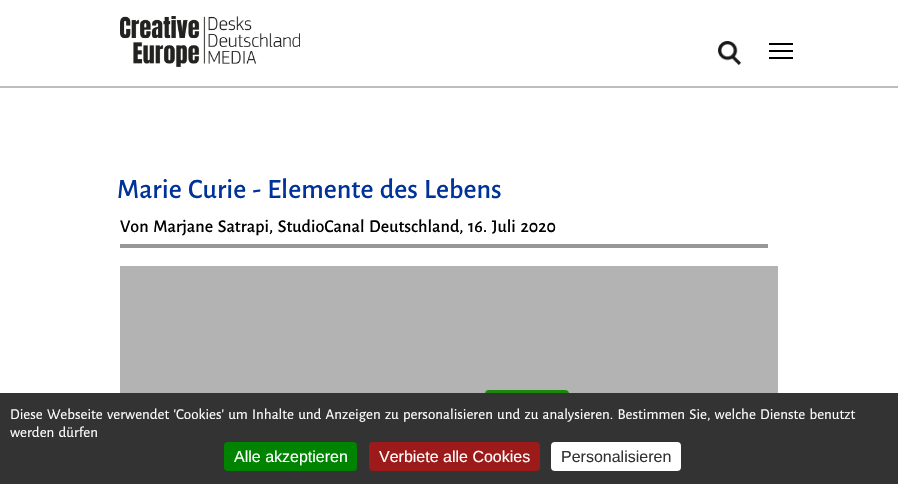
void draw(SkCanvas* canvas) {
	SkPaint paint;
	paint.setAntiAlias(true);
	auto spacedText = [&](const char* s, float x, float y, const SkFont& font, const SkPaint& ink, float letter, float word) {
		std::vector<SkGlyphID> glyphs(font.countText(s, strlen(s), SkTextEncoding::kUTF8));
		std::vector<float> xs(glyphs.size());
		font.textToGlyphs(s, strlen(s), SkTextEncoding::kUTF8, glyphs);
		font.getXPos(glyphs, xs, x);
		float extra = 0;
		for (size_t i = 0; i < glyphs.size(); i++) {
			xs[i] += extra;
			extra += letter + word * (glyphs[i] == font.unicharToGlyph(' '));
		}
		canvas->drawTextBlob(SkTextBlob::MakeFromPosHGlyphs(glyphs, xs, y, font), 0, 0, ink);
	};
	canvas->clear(0xffffffff);
	paint.setColor(0xffbdbdbd);
	canvas->drawRect(SkRect::MakeXYWH(0, 86, 898, 2), paint);
	canvas->drawImageRect(SkImages::DeferredFromEncodedData(SkData::MakeFromFileName("img1.png")), SkRect::MakeXYWH(120, 16, 180, 51), SkSamplingOptions());
	canvas->drawImageRect(SkImages::DeferredFromEncodedData(SkData::MakeFromFileName("img2.png")), SkRect::MakeXYWH(718, 41, 23, 24), SkSamplingOptions());
	paint.setColor(0xff000000);
	canvas->drawRect(SkRect::MakeXYWH(769, 50, 24, 2), paint);
	canvas->drawRect(SkRect::MakeXYWH(769, 43, 24, 2), paint);
	canvas->drawRect(SkRect::MakeXYWH(769, 57, 24, 2), paint);
	SkFont f1(fontMgr->matchFamilyStyle("Alegreya Sans", SkFontStyle(500, SkFontStyle::kNormal_Width, SkFontStyle::kUpright_Slant)), 28);
	f1.setSubpixel(true);
	paint.setColor(0xff003399);
	spacedText("Marie Curie - Elemente des Lebens", 117, 198, f1, paint, 0, 1.75);
	paint.setColor(0xff979797);
	canvas->drawRect(SkRect::MakeXYWH(120, 244, 648, 4), paint);
	SkFont f2(fontMgr->matchFamilyStyle("Alegreya Sans", SkFontStyle(500, SkFontStyle::kNormal_Width, SkFontStyle::kUpright_Slant)), 18);
	f2.setSubpixel(true);
	paint.setColor(0xff000000);
	spacedText("Von Marjane Satrapi, StudioCanal Deutschland, 16. Juli 2020", 120, 232, f2, paint, 0, 1.75);
	paint.setColor(0xffb3b3b3);
	canvas->drawRect(SkRect::MakeXYWH(120, 266, 658, 127), paint);
	paint.setColor(0xff1b870b);
	canvas->drawRoundRect(SkRect::MakeXYWH(485, 390, 84, 30), 4, 4, paint);
	paint.setColor(0xff333333);
	canvas->drawRect(SkRect::MakeXYWH(0, 393, 898, 91), paint);
	SkFont f3(fontMgr->matchFamilyStyle("Alegreya Sans", SkFontStyle::Normal()), 15);
	f3.setSubpixel(true);
	paint.setColor(0xffffffff);
	spacedText("Diese Webseite verwendet 'Cookies' um Inhalte und Anzeigen zu personalisieren und zu analysieren. Bestimmen Sie, welche Dienste benutzt", 10, 419, f3, paint, 0, 1.75);
	spacedText("werden dürfen", 10, 437, f3, paint, 0, 1.75);
	paint.setColor(0xff008300);
	canvas->drawRoundRect(SkRect::MakeXYWH(224, 442, 133, 29), 4, 4, paint);
	SkFont f4(fontMgr->matchFamilyStyle("Liberation Sans", SkFontStyle::Normal()), 16);
	f4.setSubpixel(true);
	paint.setColor(0xffffffff);
	canvas->drawString("Alle akzeptieren", 234, 462, f4, paint);
	paint.setColor(0xff9c1a1a);
	canvas->drawRoundRect(SkRect::MakeXYWH(369, 442, 171, 29), 4, 4, paint);
	paint.setColor(0xffffffff);
	canvas->drawString("Verbiete alle Cookies", 379, 462, f4, paint);
	canvas->drawRoundRect(SkRect::MakeXYWH(551, 442, 130, 29), 4, 4, paint);
	paint.setColor(0xff333333);
	canvas->drawString("Personalisieren", 561, 462, f4, paint);
}
